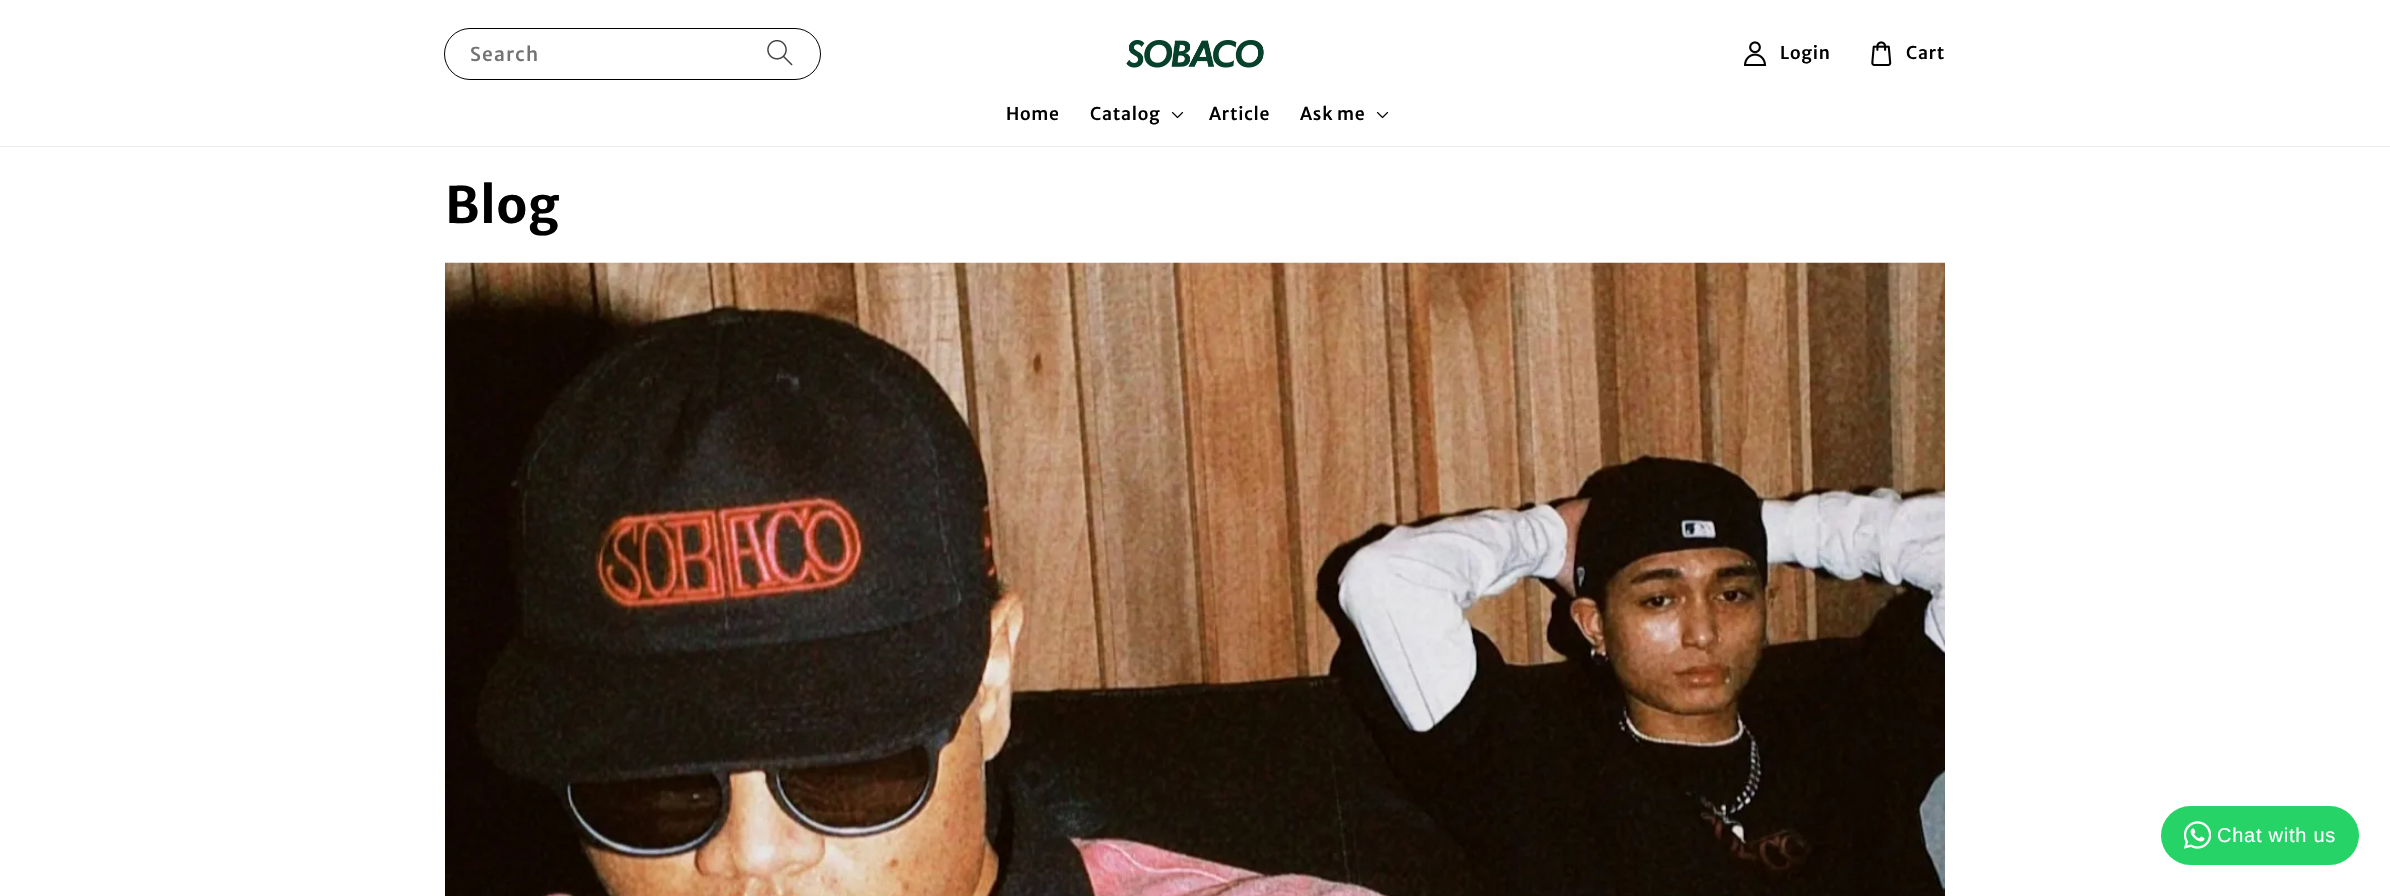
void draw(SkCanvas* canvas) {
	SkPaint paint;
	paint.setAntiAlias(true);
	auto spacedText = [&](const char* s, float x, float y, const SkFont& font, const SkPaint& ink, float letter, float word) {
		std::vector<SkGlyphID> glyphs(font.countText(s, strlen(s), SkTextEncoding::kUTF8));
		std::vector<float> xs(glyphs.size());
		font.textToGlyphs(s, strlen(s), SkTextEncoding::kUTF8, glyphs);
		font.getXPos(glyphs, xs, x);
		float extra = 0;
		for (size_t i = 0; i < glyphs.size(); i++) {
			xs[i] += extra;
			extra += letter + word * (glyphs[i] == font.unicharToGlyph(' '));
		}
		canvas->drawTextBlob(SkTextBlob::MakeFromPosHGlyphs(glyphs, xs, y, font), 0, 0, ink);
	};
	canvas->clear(0xffffffff);
	paint.setColor(0xffebebeb);
	canvas->drawRect(SkRect::MakeXYWH(0, 146, 2390, 1), paint);
	paint.setStroke(true);
	paint.setStrokeWidth(1);
	paint.setColor(0xff000000);
	canvas->drawRoundRect(SkRect::MakeXYWH(444.5, 28.5, 376, 51), 25.5, 25.5, paint);
	SkFont f1(fontMgr->matchFamilyStyle("Merriweather Sans", SkFontStyle(500, SkFontStyle::kNormal_Width, SkFontStyle::kUpright_Slant)), 19);
	f1.setSubpixel(true);
	paint.setStroke(false);
	paint.setColor(0xff737373);
	spacedText("Search", 470, 61, f1, paint, 1.25, 0);
	canvas->drawImageRect(SkImages::DeferredFromEncodedData(SkData::MakeFromFileName("img1.png")), SkRect::MakeXYWH(767, 40, 26, 26), SkSamplingOptions());
	canvas->drawImageRect(SkImages::DeferredFromEncodedData(SkData::MakeFromFileName("img2.png")), SkRect::MakeXYWH(1126, 40, 138, 28), SkSamplingOptions());
	canvas->drawImageRect(SkImages::DeferredFromEncodedData(SkData::MakeFromFileName("img3.png")), SkRect::MakeXYWH(1744, 41, 22, 25), SkSamplingOptions());
	SkFont f2(fontMgr->matchFamilyStyle("Merriweather Sans", SkFontStyle(500, SkFontStyle::kNormal_Width, SkFontStyle::kUpright_Slant)), 17.5);
	f2.setSubpixel(true);
	paint.setColor(0xff000000);
	spacedText("Login", 1780, 59, f2, paint, 0.75, 0);
	canvas->drawImageRect(SkImages::DeferredFromEncodedData(SkData::MakeFromFileName("img4.png")), SkRect::MakeXYWH(1871, 41, 21, 25), SkSamplingOptions());
	spacedText("Cart", 1906, 59, f2, paint, 0.75, 0);
	spacedText("Home", 1006, 120, f2, paint, 0.75, 0);
	spacedText("Catalog", 1090, 120, f2, paint, 0.75, 0);
	canvas->drawImageRect(SkImages::DeferredFromEncodedData(SkData::MakeFromFileName("img5.png")), SkRect::MakeXYWH(1171, 111, 13, 8), SkSamplingOptions());
	spacedText("Article", 1209, 120, f2, paint, 0.75, 0);
	spacedText("Ask me", 1300, 120, f2, paint, 0.75, 0);
	canvas->drawImageRect(SkImages::DeferredFromEncodedData(SkData::MakeFromFileName("img5.png")), SkRect::MakeXYWH(1376, 111, 13, 8), SkSamplingOptions());
	SkFont f3(fontMgr->matchFamilyStyle("Merriweather Sans", SkFontStyle::Bold()), 50);
	f3.setSubpixel(true);
	spacedText("Blog", 445, 223, f3, paint, 0.75, 0);
	canvas->drawImageRect(SkImages::DeferredFromEncodedData(SkData::MakeFromFileName("img6.png")), SkRect::MakeXYWH(445, 262, 1500, 634), SkSamplingOptions());
	paint.setColor(0xff25d366);
	canvas->drawRoundRect(SkRect::MakeXYWH(2161, 806, 198, 59), 29.5, 29.5, paint);
	canvas->drawImageRect(SkImages::DeferredFromEncodedData(SkData::MakeFromFileName("img7.png")), SkRect::MakeXYWH(2184, 821, 27, 28), SkSamplingOptions());
	SkFont f4(fontMgr->matchFamilyStyle("Liberation Sans", SkFontStyle::Normal()), 20);
	f4.setSubpixel(true);
	paint.setColor(0xffffffff);
	spacedText("Chat with us", 2217, 842, f4, paint, 0.75, 0);
}
